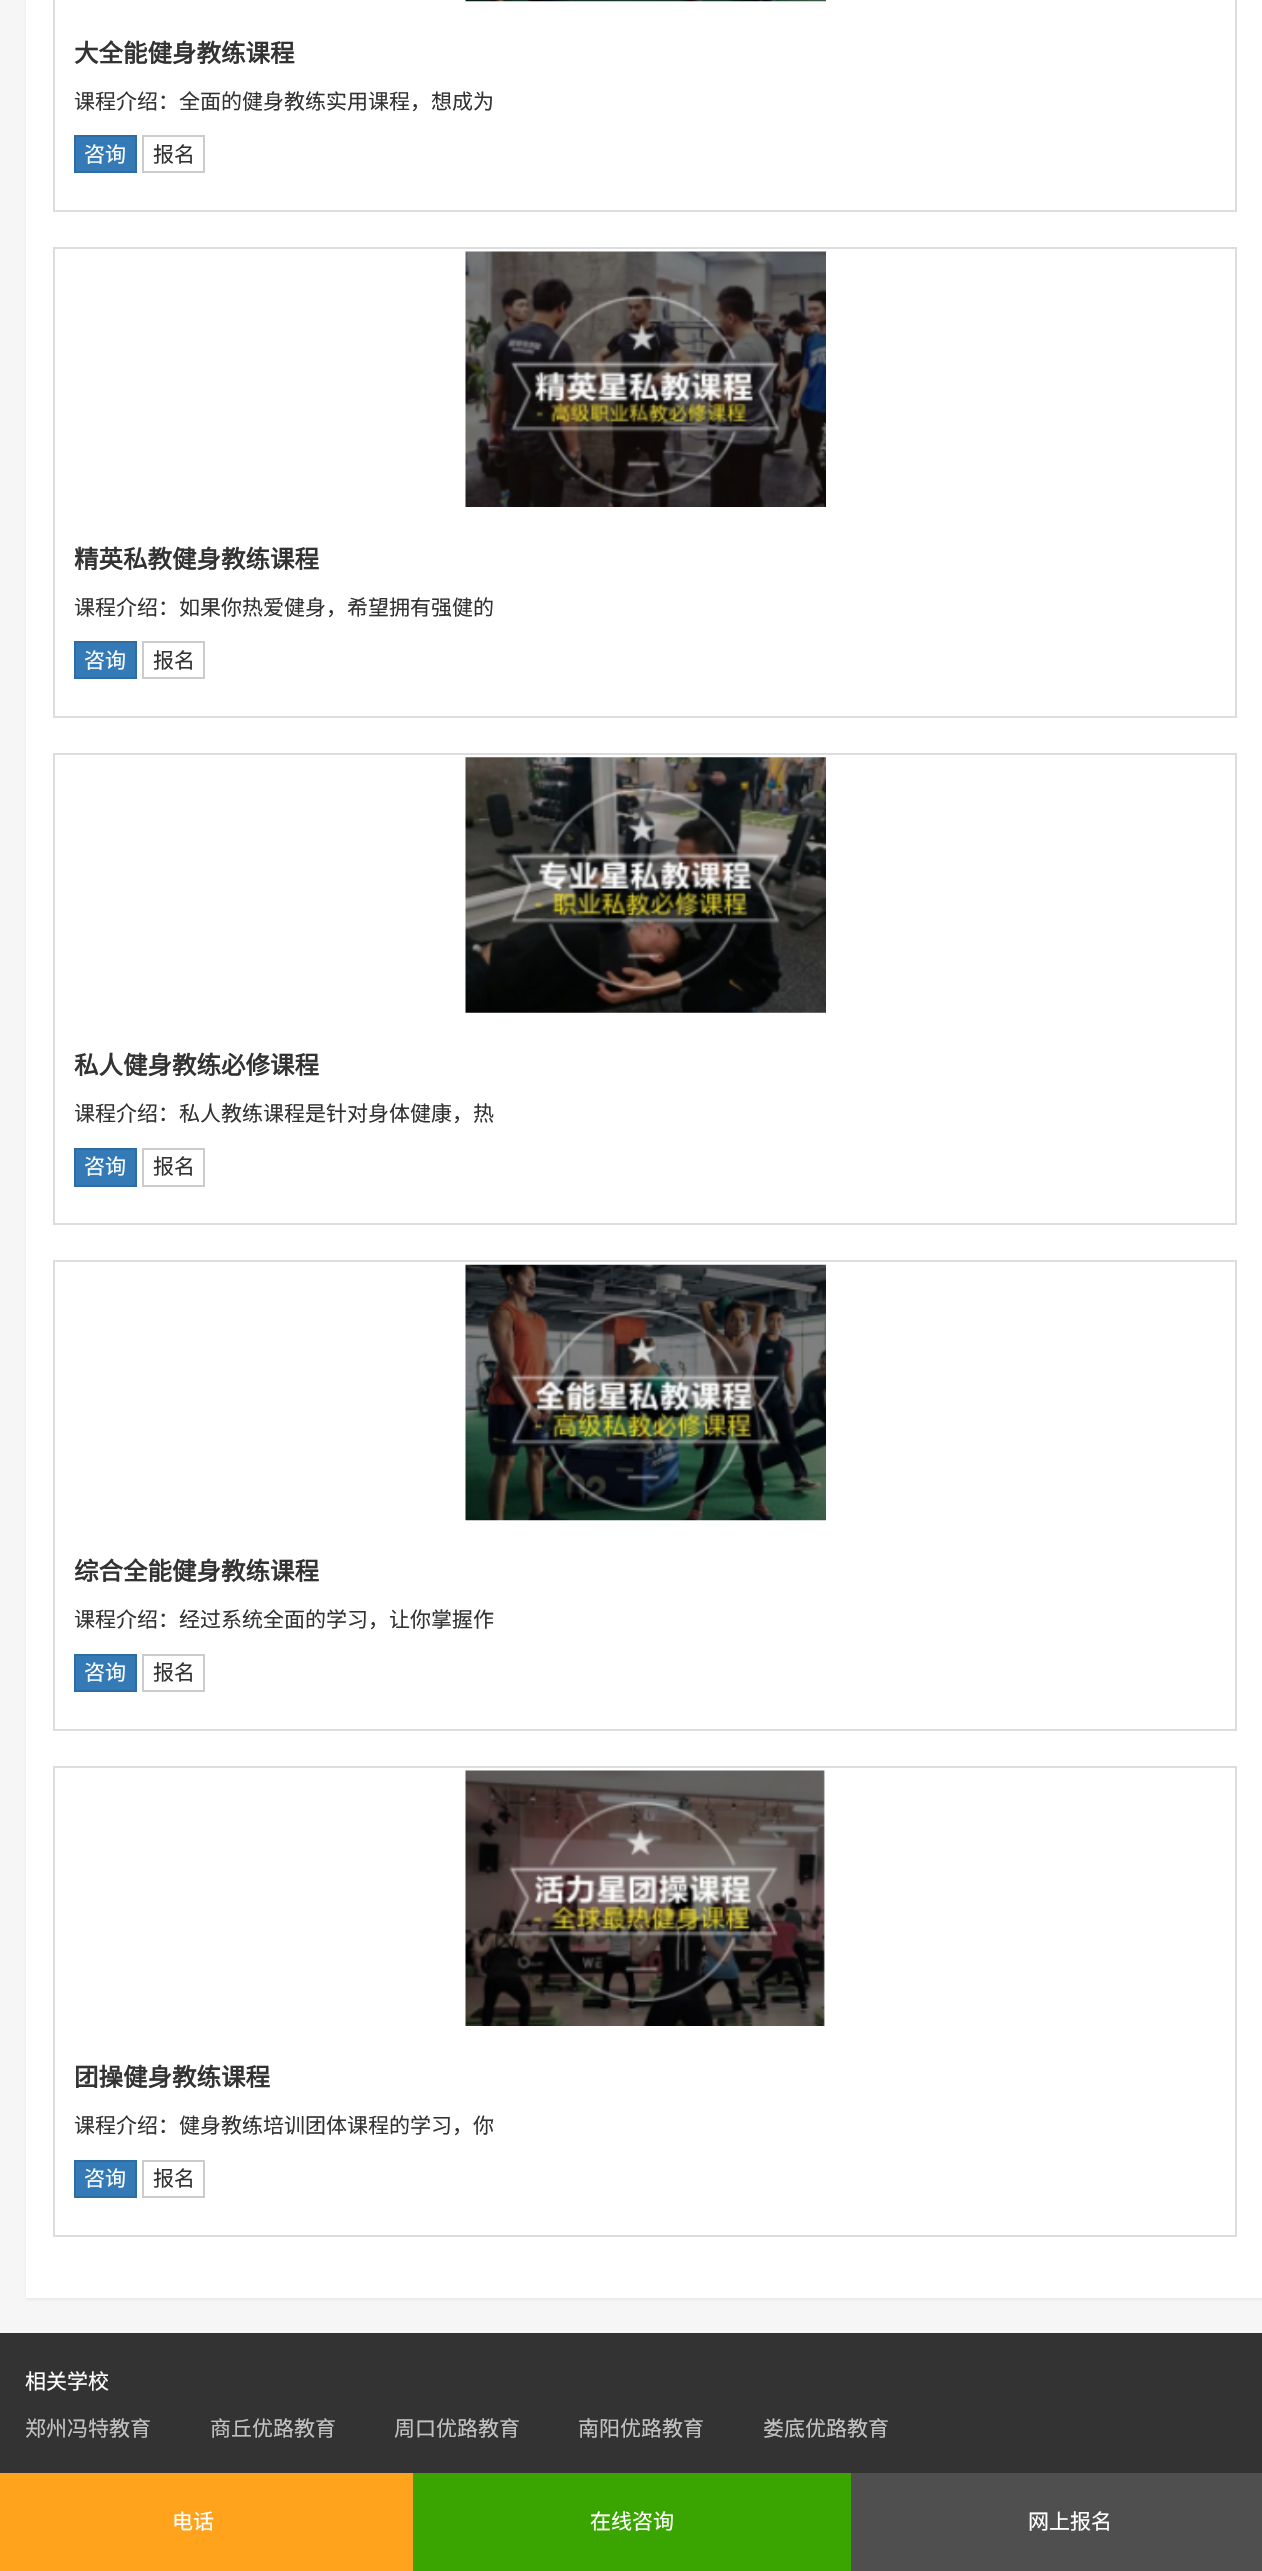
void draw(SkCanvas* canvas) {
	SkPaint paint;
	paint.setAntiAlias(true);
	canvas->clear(0xfff6f6f6);
	paint.setColor(0x0d000000);
	paint.setMaskFilter(SkMaskFilter::MakeBlur(kNormal_SkBlurStyle, 1));
	canvas->drawRect(SkRect::MakeXYWH(26, -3, 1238, 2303), paint);
	paint.setMaskFilter(nullptr);
	paint.setColor(0xffffffff);
	canvas->drawRect(SkRect::MakeXYWH(26, 0, 1236, 2298), paint);
	paint.setStroke(true);
	paint.setStrokeWidth(2);
	paint.setColor(0xffdddddd);
	canvas->drawRect(SkRect::MakeXYWH(54, -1, 1182, 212), paint);
	canvas->drawImageRect(SkImages::DeferredFromEncodedData(SkData::MakeFromFileName("img1.png")), SkRect::MakeXYWH(465, 0, 361, 2), SkSamplingOptions());
	SkFont f1(fontMgr->matchFamilyStyle("Noto Sans CJK SC", SkFontStyle::Bold()), 24.5);
	f1.setSubpixel(true);
	paint.setStroke(false);
	paint.setColor(0xff333333);
	canvas->drawString("大全能健身教练课程", 74, 62, f1, paint);
	SkFont f2(fontMgr->matchFamilyStyle("Noto Sans CJK SC", SkFontStyle::Normal()), 21);
	f2.setSubpixel(true);
	canvas->drawString("课程介绍：全面的健身教练实用课程，想成为", 74, 109, f2, paint);
	paint.setColor(0xff337ab7);
	canvas->drawRect(SkRect::MakeXYWH(75, 136, 61, 36), paint);
	paint.setStroke(true);
	paint.setColor(0xff2e6da4);
	canvas->drawRect(SkRect::MakeXYWH(75, 136, 61, 36), paint);
	paint.setStroke(false);
	paint.setColor(0xffffffff);
	canvas->drawString("咨询", 84, 162, f2, paint);
	paint.setStroke(true);
	paint.setColor(0xffcccccc);
	canvas->drawRect(SkRect::MakeXYWH(143, 136, 61, 36), paint);
	paint.setStroke(false);
	paint.setColor(0xff333333);
	canvas->drawString("报名", 153, 162, f2, paint);
	paint.setStroke(true);
	paint.setColor(0xffdddddd);
	canvas->drawRect(SkRect::MakeXYWH(54, 248, 1182, 469), paint);
	canvas->drawImageRect(SkImages::DeferredFromEncodedData(SkData::MakeFromFileName("img2.png")), SkRect::MakeXYWH(465, 251, 361, 256), SkSamplingOptions());
	paint.setStroke(false);
	paint.setColor(0xff333333);
	canvas->drawString("精英私教健身教练课程", 74, 568, f1, paint);
	canvas->drawString("课程介绍：如果你热爱健身，希望拥有强健的", 74, 615, f2, paint);
	paint.setColor(0xff337ab7);
	canvas->drawRect(SkRect::MakeXYWH(75, 642, 61, 36), paint);
	paint.setStroke(true);
	paint.setColor(0xff2e6da4);
	canvas->drawRect(SkRect::MakeXYWH(75, 642, 61, 36), paint);
	paint.setStroke(false);
	paint.setColor(0xffffffff);
	canvas->drawString("咨询", 84, 668, f2, paint);
	paint.setStroke(true);
	paint.setColor(0xffcccccc);
	canvas->drawRect(SkRect::MakeXYWH(143, 642, 61, 36), paint);
	paint.setStroke(false);
	paint.setColor(0xff333333);
	canvas->drawString("报名", 153, 668, f2, paint);
	paint.setStroke(true);
	paint.setColor(0xffdddddd);
	canvas->drawRect(SkRect::MakeXYWH(54, 754, 1182, 470), paint);
	canvas->drawImageRect(SkImages::DeferredFromEncodedData(SkData::MakeFromFileName("img3.png")), SkRect::MakeXYWH(465, 757, 361, 256), SkSamplingOptions());
	paint.setStroke(false);
	paint.setColor(0xff333333);
	canvas->drawString("私人健身教练必修课程", 74, 1074, f1, paint);
	canvas->drawString("课程介绍：私人教练课程是针对身体健康，热", 74, 1121, f2, paint);
	paint.setColor(0xff337ab7);
	canvas->drawRect(SkRect::MakeXYWH(75, 1149, 61, 37), paint);
	paint.setStroke(true);
	paint.setColor(0xff2e6da4);
	canvas->drawRect(SkRect::MakeXYWH(75, 1149, 61, 37), paint);
	paint.setStroke(false);
	paint.setColor(0xffffffff);
	canvas->drawString("咨询", 84, 1174, f2, paint);
	paint.setStroke(true);
	paint.setColor(0xffcccccc);
	canvas->drawRect(SkRect::MakeXYWH(143, 1149, 61, 37), paint);
	paint.setStroke(false);
	paint.setColor(0xff333333);
	canvas->drawString("报名", 153, 1174, f2, paint);
	paint.setStroke(true);
	paint.setColor(0xffdddddd);
	canvas->drawRect(SkRect::MakeXYWH(54, 1261, 1182, 469), paint);
	canvas->drawImageRect(SkImages::DeferredFromEncodedData(SkData::MakeFromFileName("img4.png")), SkRect::MakeXYWH(465, 1264, 361, 257), SkSamplingOptions());
	paint.setStroke(false);
	paint.setColor(0xff333333);
	canvas->drawString("综合全能健身教练课程", 74, 1580, f1, paint);
	canvas->drawString("课程介绍：经过系统全面的学习，让你掌握作", 74, 1627, f2, paint);
	paint.setColor(0xff337ab7);
	canvas->drawRect(SkRect::MakeXYWH(75, 1655, 61, 36), paint);
	paint.setStroke(true);
	paint.setColor(0xff2e6da4);
	canvas->drawRect(SkRect::MakeXYWH(75, 1655, 61, 36), paint);
	paint.setStroke(false);
	paint.setColor(0xffffffff);
	canvas->drawString("咨询", 84, 1680, f2, paint);
	paint.setStroke(true);
	paint.setColor(0xffcccccc);
	canvas->drawRect(SkRect::MakeXYWH(143, 1655, 61, 36), paint);
	paint.setStroke(false);
	paint.setColor(0xff333333);
	canvas->drawString("报名", 153, 1680, f2, paint);
	paint.setStroke(true);
	paint.setColor(0xffdddddd);
	canvas->drawRect(SkRect::MakeXYWH(54, 1767, 1182, 469), paint);
	canvas->drawImageRect(SkImages::DeferredFromEncodedData(SkData::MakeFromFileName("img5.png")), SkRect::MakeXYWH(465, 1770, 360, 256), SkSamplingOptions());
	paint.setStroke(false);
	paint.setColor(0xff333333);
	canvas->drawString("团操健身教练课程", 74, 2086, f1, paint);
	canvas->drawString("课程介绍：健身教练培训团体课程的学习，你", 74, 2133, f2, paint);
	paint.setColor(0xff337ab7);
	canvas->drawRect(SkRect::MakeXYWH(75, 2161, 61, 36), paint);
	paint.setStroke(true);
	paint.setColor(0xff2e6da4);
	canvas->drawRect(SkRect::MakeXYWH(75, 2161, 61, 36), paint);
	paint.setStroke(false);
	paint.setColor(0xffffffff);
	canvas->drawString("咨询", 84, 2186, f2, paint);
	paint.setStroke(true);
	paint.setColor(0xffcccccc);
	canvas->drawRect(SkRect::MakeXYWH(143, 2161, 61, 36), paint);
	paint.setStroke(false);
	paint.setColor(0xff333333);
	canvas->drawString("报名", 153, 2186, f2, paint);
	canvas->drawRect(SkRect::MakeXYWH(0, 2333, 1262, 140), paint);
	paint.setColor(0xffffffff);
	canvas->drawString("相关学校", 25, 2389, f2, paint);
	paint.setColor(0xffc2c2c2);
	canvas->drawString("郑州冯特教育", 25, 2436, f2, paint);
	canvas->drawString("商丘优路教育", 210, 2436, f2, paint);
	canvas->drawString("周口优路教育", 394, 2436, f2, paint);
	canvas->drawString("南阳优路教育", 578, 2436, f2, paint);
	canvas->drawString("娄底优路教育", 763, 2436, f2, paint);
	paint.setColor(0xffffa21c);
	canvas->drawRect(SkRect::MakeXYWH(0, 2473, 413, 98), paint);
	paint.setColor(0xffffffff);
	canvas->drawString("电话", 172, 2529, f2, paint);
	paint.setColor(0xff3aa400);
	canvas->drawRect(SkRect::MakeXYWH(413, 2473, 438, 98), paint);
	paint.setColor(0xffffffff);
	canvas->drawString("在线咨询", 590, 2529, f2, paint);
	paint.setColor(0xff4f4f4f);
	canvas->drawRect(SkRect::MakeXYWH(851, 2473, 411, 98), paint);
	paint.setColor(0xffffffff);
	canvas->drawString("网上报名", 1028, 2529, f2, paint);
}
